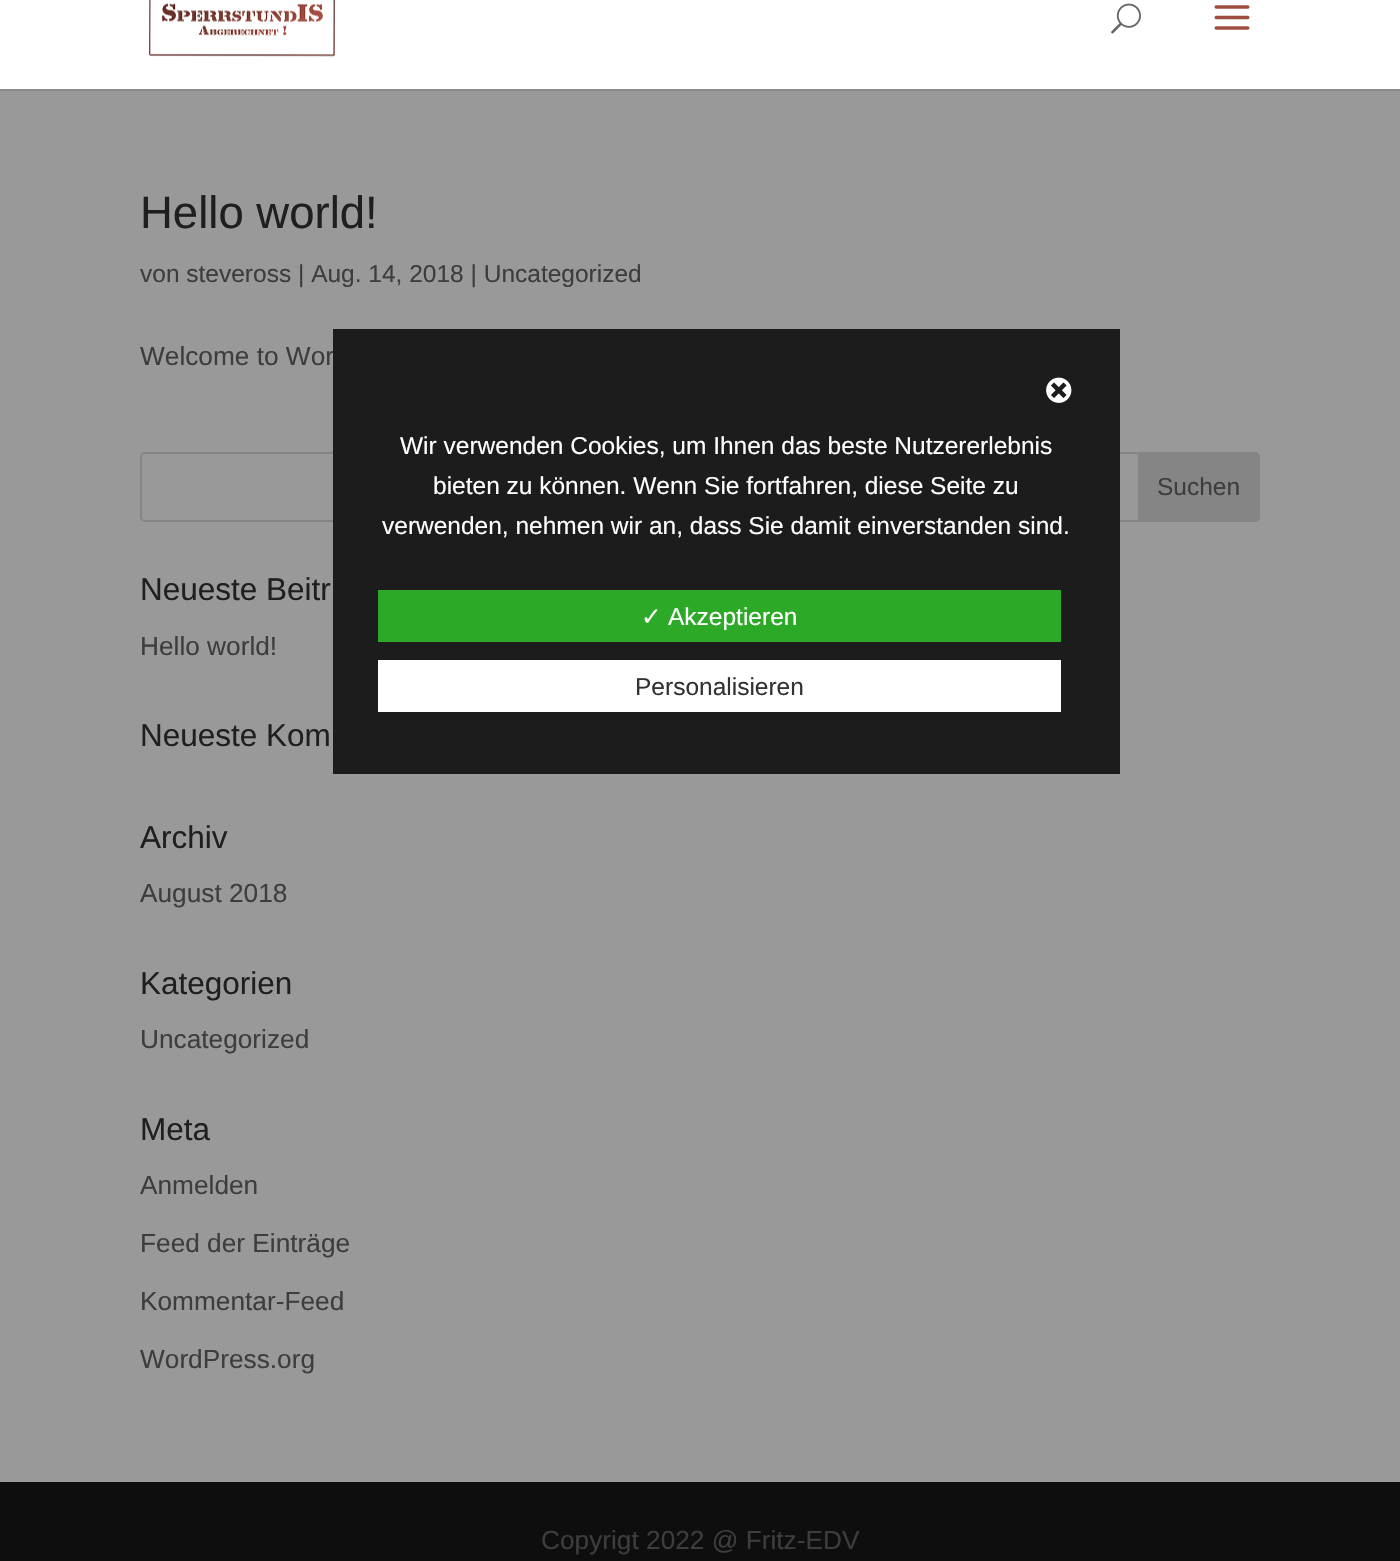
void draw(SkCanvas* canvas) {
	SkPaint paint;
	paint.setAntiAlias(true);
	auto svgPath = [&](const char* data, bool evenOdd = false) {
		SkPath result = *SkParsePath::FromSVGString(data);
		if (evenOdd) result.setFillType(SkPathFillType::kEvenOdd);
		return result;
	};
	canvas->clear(0xff999999);
	paint.setColor(0xff8a8a8a);
	canvas->drawRect(SkRect::MakeXYWH(0, 89, 1400, 2), paint);
	paint.setColor(0xffffffff);
	canvas->drawRect(SkRect::MakeXYWH(0, 0, 1400, 89), paint);
	canvas->drawImageRect(SkImages::DeferredFromEncodedData(SkData::MakeFromFileName("img1.png")), SkRect::MakeXYWH(149, 0, 186, 57), SkSamplingOptions());
	canvas->drawImageRect(SkImages::DeferredFromEncodedData(SkData::MakeFromFileName("img2.png")), SkRect::MakeXYWH(1111, 3, 30, 31), SkSamplingOptions());
	canvas->drawImageRect(SkImages::DeferredFromEncodedData(SkData::MakeFromFileName("img3.png")), SkRect::MakeXYWH(1214, 5, 36, 25), SkSamplingOptions());
	SkFont f1(fontMgr->matchFamilyStyle("Liberation Sans", SkFontStyle::Normal()), 45.5);
	f1.setSubpixel(true);
	paint.setColor(0xff1f1f1f);
	canvas->drawString("Hello world!", 140, 228, f1, paint);
	SkFont f2(fontMgr->matchFamilyStyle("Liberation Sans", SkFontStyle::Normal()), 24.5);
	f2.setSubpixel(true);
	paint.setColor(0xff3d3d3d);
	canvas->drawString("von steveross | Aug. 14, 2018 | Uncategorized", 140, 282, f2, paint);
	SkFont f3(fontMgr->matchFamilyStyle("Liberation Sans", SkFontStyle::Normal()), 26.25);
	f3.setSubpixel(true);
	canvas->drawString("Welcome to Wor", 140, 365, f3, paint);
	paint.setStroke(true);
	paint.setStrokeWidth(2);
	paint.setColor(0xff858585);
	canvas->drawRoundRect(SkRect::MakeXYWH(141, 453, 1118, 68), 4, 4, paint);
	paint.setStroke(false);
	canvas->drawPath(svgPath("M1139 453H1255C1257 453 1259 455 1259 457V517C1259 519 1257 521 1255 521H1139Z"), paint);
	paint.setStroke(true);
	canvas->drawPath(svgPath("M1139 453H1255C1257 453 1259 455 1259 457V517C1259 519 1257 521 1255 521H1139Z"), paint);
	paint.setStroke(false);
	paint.setColor(0xff3d3d3d);
	canvas->drawString("Suchen", 1157, 495, f2, paint);
	SkFont f4(fontMgr->matchFamilyStyle("Liberation Sans", SkFontStyle::Normal()), 31.5);
	f4.setSubpixel(true);
	paint.setColor(0xff1f1f1f);
	canvas->drawString("Neueste Beitr", 140, 600, f4, paint);
	paint.setColor(0xff3d3d3d);
	canvas->drawString("Hello world!", 140, 655, f3, paint);
	paint.setColor(0xff1f1f1f);
	canvas->drawString("Neueste Kom", 140, 746, f4, paint);
	canvas->drawString("Archiv", 140, 848, f4, paint);
	paint.setColor(0xff3d3d3d);
	canvas->drawString("August 2018", 140, 902, f3, paint);
	paint.setColor(0xff1f1f1f);
	canvas->drawString("Kategorien", 140, 994, f4, paint);
	paint.setColor(0xff3d3d3d);
	canvas->drawString("Uncategorized", 140, 1048, f3, paint);
	paint.setColor(0xff1f1f1f);
	canvas->drawString("Meta", 140, 1140, f4, paint);
	paint.setColor(0xff3d3d3d);
	canvas->drawString("Anmelden", 140, 1194, f3, paint);
	canvas->drawString("Feed der Einträge", 140, 1252, f3, paint);
	canvas->drawString("Kommentar-Feed", 140, 1310, f3, paint);
	canvas->drawString("WordPress.org", 140, 1368, f3, paint);
	paint.setColor(0xff0e0e0e);
	canvas->drawRect(SkRect::MakeXYWH(0, 1482, 1400, 79), paint);
	paint.setColor(0xff3d3d3d);
	canvas->drawString("Copyrigt 2022 @ Fritz-EDV", 541, 1549, f3, paint);
	paint.setColor(0xff1d1c1c);
	canvas->drawRect(SkRect::MakeXYWH(333, 329, 787, 445), paint);
	canvas->drawImageRect(SkImages::DeferredFromEncodedData(SkData::MakeFromFileName("img4.png")), SkRect::MakeXYWH(1046, 377, 26, 26), SkSamplingOptions());
	paint.setColor(0xffffffff);
	canvas->drawString("Wir verwenden Cookies, um Ihnen das beste Nutzererlebnis", 400, 454, f2, paint);
	canvas->drawString("bieten zu können. Wenn Sie fortfahren, diese Seite zu", 433, 494, f2, paint);
	canvas->drawString("verwenden, nehmen wir an, dass Sie damit einverstanden sind.", 382, 534, f2, paint);
	paint.setColor(0xff2caa27);
	canvas->drawRect(SkRect::MakeXYWH(378, 590, 683, 52), paint);
	SkFont f5(fontMgr->matchFamilyStyle("DejaVu Sans", SkFontStyle::Normal()), 24.5);
	f5.setSubpixel(true);
	paint.setColor(0xffffffff);
	canvas->drawString("✓", 641, 625, f5, paint);
	canvas->drawString("Akzeptieren", 668, 625, f2, paint);
	canvas->drawRect(SkRect::MakeXYWH(378, 660, 683, 52), paint);
	paint.setColor(0xff333333);
	canvas->drawString("Personalisieren", 635, 695, f2, paint);
}
